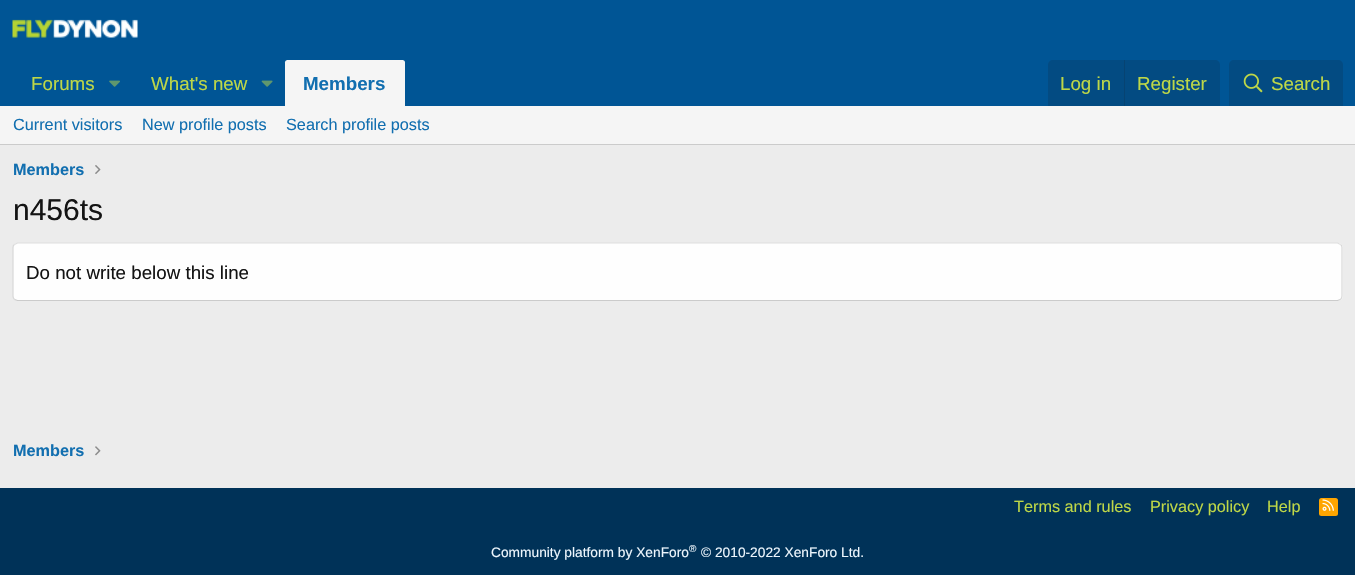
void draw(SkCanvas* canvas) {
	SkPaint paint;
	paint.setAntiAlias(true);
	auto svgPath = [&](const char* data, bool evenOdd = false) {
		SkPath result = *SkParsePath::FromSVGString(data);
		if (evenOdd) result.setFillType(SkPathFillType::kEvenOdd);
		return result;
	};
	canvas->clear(0xffececec);
	paint.setColor(0xff005595);
	canvas->drawRect(SkRect::MakeXYWH(0, 0, 1355, 106), paint);
	canvas->drawImageRect(SkImages::DeferredFromEncodedData(SkData::MakeFromFileName("img1.png")), SkRect::MakeXYWH(12, 19, 126, 19), SkSamplingOptions());
	SkFont f1(fontMgr->matchFamilyStyle("Liberation Sans", SkFontStyle::Normal()), 18.75);
	f1.setSubpixel(true);
	paint.setColor(0xffbed747);
	canvas->drawString("Forums", 31, 90, f1, paint);
	canvas->drawImageRect(SkImages::DeferredFromEncodedData(SkData::MakeFromFileName("img2.png")), SkRect::MakeXYWH(109, 80, 11, 7), SkSamplingOptions());
	canvas->drawString("What's new", 151, 90, f1, paint);
	canvas->drawImageRect(SkImages::DeferredFromEncodedData(SkData::MakeFromFileName("img3.png")), SkRect::MakeXYWH(261, 80, 12, 7), SkSamplingOptions());
	paint.setColor(0xfff5f5f5);
	canvas->drawPath(svgPath("M287.5 60H402.5C404 60 405 61 405 62.5V106H285V62.5C285 61 286 60 287.5 60Z"), paint);
	SkFont f2(fontMgr->matchFamilyStyle("Liberation Sans", SkFontStyle::Bold()), 18.75);
	f2.setSubpixel(true);
	paint.setColor(0xff126fb0);
	canvas->drawString("Members", 303, 90, f2, paint);
	paint.setColor(0xff034b82);
	canvas->drawPath(svgPath("M1053 60H1215C1218 60 1220 62 1220 65V106H1048V65C1048 62 1050 60 1053 60Z"), paint);
	paint.setColor(0xffbed747);
	canvas->drawString("Log in", 1060, 90, f1, paint);
	paint.setColor(0xff064372);
	canvas->drawRect(SkRect::MakeXYWH(1124, 60, 1, 46), paint);
	paint.setColor(0xffbed747);
	canvas->drawString("Register", 1137, 90, f1, paint);
	paint.setColor(0xff034b82);
	canvas->drawPath(svgPath("M1234 60H1338C1341 60 1343 62 1343 65V106H1229V65C1229 62 1231 60 1234 60Z"), paint);
	canvas->drawImageRect(SkImages::DeferredFromEncodedData(SkData::MakeFromFileName("img4.png")), SkRect::MakeXYWH(1243, 73, 20, 20), SkSamplingOptions());
	paint.setColor(0xffbed747);
	canvas->drawString("Search", 1271, 90, f1, paint);
	paint.setColor(0xfff5f5f5);
	canvas->drawRect(SkRect::MakeXYWH(0, 106, 1355, 38), paint);
	paint.setColor(0xffcbcbcb);
	canvas->drawRect(SkRect::MakeXYWH(0, 144, 1355, 1), paint);
	SkFont f3(fontMgr->matchFamilyStyle("Liberation Sans", SkFontStyle::Normal()), 16.25);
	f3.setSubpixel(true);
	paint.setColor(0xff126fb0);
	canvas->drawString("Current visitors", 13, 130, f3, paint);
	canvas->drawString("New profile posts", 142, 130, f3, paint);
	canvas->drawString("Search profile posts", 286, 130, f3, paint);
	SkFont f4(fontMgr->matchFamilyStyle("Liberation Sans", SkFontStyle::Bold()), 16.25);
	f4.setSubpixel(true);
	canvas->drawString("Members", 13, 175, f4, paint);
	canvas->drawImageRect(SkImages::DeferredFromEncodedData(SkData::MakeFromFileName("img5.png")), SkRect::MakeXYWH(95, 165, 6, 9), SkSamplingOptions());
	SkFont f5(fontMgr->matchFamilyStyle("Liberation Sans", SkFontStyle::Normal()), 30);
	f5.setSubpixel(true);
	paint.setColor(0xff141414);
	canvas->drawString("n456ts", 13, 220, f5, paint);
	paint.setColor(0xfffefefe);
	canvas->drawRoundRect(SkRect::MakeXYWH(13, 243, 1330, 58), 5, 5, paint);
	paint.setStroke(true);
	paint.setStrokeWidth(1.2);
	paint.setColor(0xffdfdfdf);
	canvas->drawPath(svgPath("M14.5 244.5L17.5 243H1337.5L1340.5 244.5"), paint);
	paint.setColor(0xffd8d8d8);
	canvas->drawPath(svgPath("M1340.5 244.5C1341.5 245 1342 246.5 1342 247.5V296C1342 297.5 1341.5 298.5 1340.5 299.5"), paint);
	paint.setColor(0xffcbcbcb);
	canvas->drawPath(svgPath("M1340.5 299.5L1337.5 300.5H17.5L14.5 299.5"), paint);
	paint.setColor(0xffd8d8d8);
	canvas->drawPath(svgPath("M14.5 299.5C13.5 298.5 13 297.5 13 296V247.5C13 246.5 13.5 245 14.5 244.5"), paint);
	paint.setStroke(false);
	paint.setColor(0xff141414);
	canvas->drawString("Do not write below this line", 26, 279, f1, paint);
	paint.setColor(0xff126fb0);
	canvas->drawString("Members", 13, 456, f4, paint);
	canvas->drawImageRect(SkImages::DeferredFromEncodedData(SkData::MakeFromFileName("img6.png")), SkRect::MakeXYWH(95, 446, 6, 10), SkSamplingOptions());
	paint.setColor(0xff003258);
	canvas->drawRect(SkRect::MakeXYWH(0, 488, 1355, 87), paint);
	paint.setColor(0xffbed747);
	canvas->drawString("Terms and rules", 1014, 512, f3, paint);
	canvas->drawString("Privacy policy", 1150, 512, f3, paint);
	canvas->drawString("Help", 1267, 512, f3, paint);
	paint.setColor(0xffffa500);
	canvas->drawRoundRect(SkRect::MakeXYWH(1319, 498, 19, 18), 2.5, 2.5, paint);
	canvas->drawImageRect(SkImages::DeferredFromEncodedData(SkData::MakeFromFileName("img7.png")), SkRect::MakeXYWH(1322, 499, 12, 12), SkSamplingOptions());
	SkFont f6(fontMgr->matchFamilyStyle("Liberation Sans", SkFontStyle::Normal()), 13.75);
	f6.setSubpixel(true);
	paint.setColor(0xffedf6fd);
	canvas->drawString("Community platform by XenForo", 491, 557, f6, paint);
	SkFont f7(fontMgr->matchFamilyStyle("Liberation Sans", SkFontStyle::Normal()), 10);
	f7.setSubpixel(true);
	canvas->drawString("®", 689, 552, f7, paint);
	canvas->drawString("© 2010-2022 XenForo Ltd.", 701, 557, f6, paint);
}
